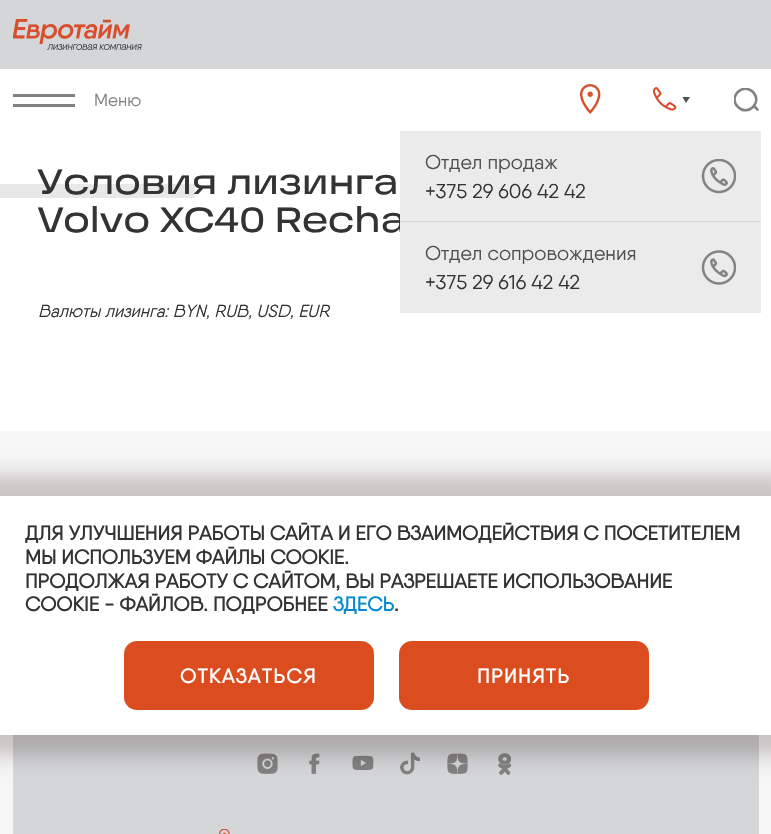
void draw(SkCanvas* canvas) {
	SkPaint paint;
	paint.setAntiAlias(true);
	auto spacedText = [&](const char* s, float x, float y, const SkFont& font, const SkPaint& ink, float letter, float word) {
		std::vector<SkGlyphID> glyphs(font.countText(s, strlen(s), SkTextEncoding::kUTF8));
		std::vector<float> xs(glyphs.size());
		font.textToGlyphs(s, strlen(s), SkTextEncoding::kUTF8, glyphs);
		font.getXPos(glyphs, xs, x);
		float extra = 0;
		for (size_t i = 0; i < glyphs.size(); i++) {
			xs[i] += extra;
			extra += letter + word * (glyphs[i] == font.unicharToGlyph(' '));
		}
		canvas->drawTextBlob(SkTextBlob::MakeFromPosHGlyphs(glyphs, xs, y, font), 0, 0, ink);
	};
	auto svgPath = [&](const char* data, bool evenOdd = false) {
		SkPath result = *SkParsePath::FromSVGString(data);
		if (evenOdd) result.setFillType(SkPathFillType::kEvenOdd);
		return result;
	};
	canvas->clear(0xfff6f6f6);
	paint.setColor(0xffffffff);
	canvas->drawRect(SkRect::MakeXYWH(0, 69, 771, 362), paint);
	paint.setColor(0xff828282);
	canvas->drawRect(SkRect::MakeXYWH(13, 94, 62, 3), paint);
	canvas->drawRect(SkRect::MakeXYWH(13, 104, 62, 3), paint);
	SkFont f1(fontMgr->matchFamilyStyle("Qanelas", SkFontStyle::Normal()), 17.5);
	f1.setSubpixel(true);
	canvas->drawString("Меню", 94, 106, f1, paint);
	canvas->save();
	canvas->clipRect(SkRect::MakeXYWH(734, 88, 25, 25));
	paint.setStroke(true);
	paint.setStrokeWidth(2.5);
	canvas->drawPath(svgPath("M753 92C763 102 748 117 738 107C727.5 97 743 82 753 92Z"), paint);
	canvas->restore();
	paint.setStrokeCap(SkPaint::kRound_Cap);
	canvas->drawPath(svgPath("M754 106L757.5 109.5"), paint);
	paint.setStroke(false);
	paint.setColor(0xffd4d6d8);
	canvas->drawRect(SkRect::MakeXYWH(0, 0, 771, 69), paint);
	canvas->drawImageRect(SkImages::DeferredFromEncodedData(SkData::MakeFromFileName("img1.png")), SkRect::MakeXYWH(13, 19, 129, 31), SkSamplingOptions());
	canvas->drawImageRect(SkImages::DeferredFromEncodedData(SkData::MakeFromFileName("img2.png")), SkRect::MakeXYWH(580, 84, 21, 30), SkSamplingOptions());
	canvas->drawImageRect(SkImages::DeferredFromEncodedData(SkData::MakeFromFileName("img3.png")), SkRect::MakeXYWH(653, 87, 24, 24), SkSamplingOptions());
	paint.setColor(0xff4f4f4f);
	canvas->drawPath(svgPath("M682.5 97H690L686 103Z"), paint);
	SkFont f2(fontMgr->matchFamilyStyle("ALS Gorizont", SkFontStyle::Normal()), 35);
	f2.setSubpixel(true);
	paint.setColor(0xff333333);
	canvas->drawString("Volvo XC40 Recha", 38, 232, f2, paint);
	paint.setColor(0xffebebeb);
	canvas->drawRect(SkRect::MakeXYWH(400, 131, 361, 182), paint);
	paint.setColor(0xffd4d6d8);
	canvas->drawRect(SkRect::MakeXYWH(400, 221, 361, 1), paint);
	SkFont f3(fontMgr->matchFamilyStyle("Qanelas", SkFontStyle::Normal()), 20);
	f3.setSubpixel(true);
	paint.setColor(0xff4f4f4f);
	canvas->drawString("Отдел продаж", 425, 169, f3, paint);
	canvas->drawImageRect(SkImages::DeferredFromEncodedData(SkData::MakeFromFileName("img4.png")), SkRect::MakeXYWH(701, 159, 35, 35), SkSamplingOptions());
	paint.setColor(0xff333333);
	canvas->drawString("+375 29 606 42 42", 425, 198, f3, paint);
	paint.setColor(0xff4f4f4f);
	canvas->drawString("Отдел сопровождения", 425, 260, f3, paint);
	canvas->drawImageRect(SkImages::DeferredFromEncodedData(SkData::MakeFromFileName("img5.png")), SkRect::MakeXYWH(701, 250, 35, 35), SkSamplingOptions());
	paint.setColor(0xff333333);
	canvas->drawString("+375 29 616 42 42", 425, 289, f3, paint);
	paint.setColor(0xffe8e8e8);
	canvas->drawRect(SkRect::MakeXYWH(0, 184, 195, 14), paint);
	paint.setColor(0xff333333);
	canvas->drawString("Условия лизинга", 38, 194, f2, paint);
	SkFont f4(fontMgr->matchFamilyStyle("Qanelas", SkFontStyle::Italic()), 17.5);
	f4.setSubpixel(true);
	canvas->drawString("Валюты лизинга: BYN, RUB, USD, EUR", 38, 317, f4, paint);
	paint.setColor(0xffd4d6d8);
	canvas->drawRect(SkRect::MakeXYWH(13, 735, 746, 99), paint);
	canvas->drawImageRect(SkImages::DeferredFromEncodedData(SkData::MakeFromFileName("img6.png")), SkRect::MakeXYWH(257, 753, 21, 21), SkSamplingOptions());
	canvas->drawImageRect(SkImages::DeferredFromEncodedData(SkData::MakeFromFileName("img7.png")), SkRect::MakeXYWH(309, 753, 11, 21), SkSamplingOptions());
	canvas->drawImageRect(SkImages::DeferredFromEncodedData(SkData::MakeFromFileName("img8.png")), SkRect::MakeXYWH(352, 755, 22, 16), SkSamplingOptions());
	canvas->drawImageRect(SkImages::DeferredFromEncodedData(SkData::MakeFromFileName("img9.png")), SkRect::MakeXYWH(400, 752, 20, 23), SkSamplingOptions());
	canvas->drawImageRect(SkImages::DeferredFromEncodedData(SkData::MakeFromFileName("img10.png")), SkRect::MakeXYWH(447, 753, 21, 21), SkSamplingOptions());
	canvas->drawImageRect(SkImages::DeferredFromEncodedData(SkData::MakeFromFileName("img11.png")), SkRect::MakeXYWH(498, 753, 13, 22), SkSamplingOptions());
	paint.setColor(0x33160101);
	paint.setMaskFilter(SkMaskFilter::MakeBlur(kNormal_SkBlurStyle, 9.5));
	canvas->drawRect(SkRect::MakeXYWH(-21, 475, 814, 281), paint);
	paint.setMaskFilter(nullptr);
	paint.setColor(0xffffffff);
	canvas->drawRect(SkRect::MakeXYWH(0, 496, 771, 239), paint);
	SkFont f5(fontMgr->matchFamilyStyle("Qanelas", SkFontStyle::Bold()), 20);
	f5.setSubpixel(true);
	paint.setColor(0xff333333);
	canvas->drawString("ДЛЯ УЛУЧШЕНИЯ РАБОТЫ САЙТА И ЕГО ВЗАИМОДЕЙСТВИЯ С ПОСЕТИТЕЛЕМ", 25, 540, f5, paint);
	canvas->drawString("МЫ ИСПОЛЬЗУЕМ ФАЙЛЫ COOKIE.", 25, 564, f5, paint);
	canvas->drawString("ПРОДОЛЖАЯ РАБОТУ С САЙТОМ, ВЫ РАЗРЕШАЕТЕ ИСПОЛЬЗОВАНИЕ", 25, 588, f5, paint);
	canvas->drawString("COOKIE - ФАЙЛОВ. ПОДРОБНЕЕ", 25, 611, f5, paint);
	paint.setColor(0xff058acd);
	canvas->drawString("ЗДЕСЬ", 333, 611, f5, paint);
	paint.setColor(0xff333333);
	canvas->drawString(".", 394, 611, f5, paint);
	paint.setColor(0xffdb4d1f);
	canvas->drawRoundRect(SkRect::MakeXYWH(124, 641, 250, 69), 13, 13, paint);
	paint.setColor(0xffffffff);
	spacedText("ОТКАЗАТЬСЯ", 180, 683, f5, paint, 1.4, 0);
	paint.setColor(0xffdb4d1f);
	canvas->drawRoundRect(SkRect::MakeXYWH(399, 641, 250, 69), 13, 13, paint);
	paint.setColor(0xffffffff);
	spacedText("ПРИНЯТЬ", 477, 683, f5, paint, 1.4, 0);
	canvas->drawImageRect(SkImages::DeferredFromEncodedData(SkData::MakeFromFileName("img12.png")), SkRect::MakeXYWH(219, 829, 11, 5), SkSamplingOptions());
}
